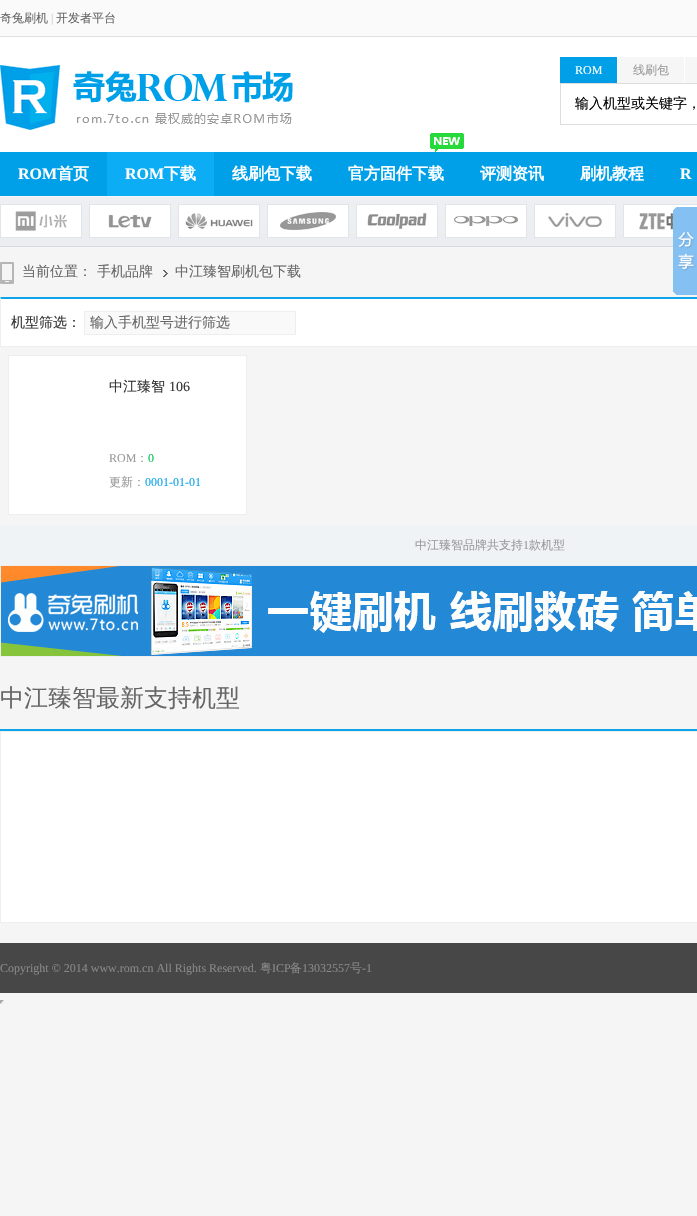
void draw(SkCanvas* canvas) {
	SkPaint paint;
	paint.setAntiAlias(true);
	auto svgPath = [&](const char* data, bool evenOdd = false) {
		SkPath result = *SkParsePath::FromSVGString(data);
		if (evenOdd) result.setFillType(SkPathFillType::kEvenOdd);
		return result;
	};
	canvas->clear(0xfff5f5f5);
	paint.setColor(0xfffafafa);
	canvas->drawRect(SkRect::MakeXYWH(0, 0, 697, 36), paint);
	paint.setColor(0xffe0e0e0);
	canvas->drawRect(SkRect::MakeXYWH(0, 36, 697, 1), paint);
	SkFont f1(fontMgr->matchFamilyStyle("WenQuanYi Zen Hei", SkFontStyle(500, SkFontStyle::kNormal_Width, SkFontStyle::kUpright_Slant)), 12);
	f1.setSubpixel(true);
	paint.setColor(0xff666666);
	canvas->drawString("奇兔刷机", 0, 22, f1, paint);
	SkFont f2(fontMgr->matchFamilyStyle("Liberation Serif", SkFontStyle::Normal()), 12);
	f2.setSubpixel(true);
	paint.setColor(0xffcccccc);
	canvas->drawString("|", 51, 22, f2, paint);
	paint.setColor(0xff666666);
	canvas->drawString("开发者平台", 56, 22, f1, paint);
	paint.setColor(0xffffffff);
	canvas->drawRect(SkRect::MakeXYWH(0, 37, 697, 115), paint);
	canvas->drawImageRect(SkImages::DeferredFromEncodedData(SkData::MakeFromFileName("img1.png")), SkRect::MakeXYWH(430, 133, 34, 19), SkSamplingOptions());
	canvas->drawImageRect(SkImages::DeferredFromEncodedData(SkData::MakeFromFileName("img2.png")), SkRect::MakeXYWH(0, 65, 293, 65), SkSamplingOptions());
	canvas->drawImageRect(SkImages::DeferredFromEncodedData(SkData::MakeFromFileName("img3.png")), SkRect::MakeXYWH(560, 57, 57, 26), SkSamplingOptions());
	canvas->drawString("ROM", 575, 74, f2, paint);
	paint.setColor(0xfff6f6f6);
	canvas->drawRect(SkRect::MakeXYWH(618, 57, 66, 26), paint);
	paint.setColor(0xff999999);
	canvas->drawString("线刷包", 633, 74, f1, paint);
	paint.setColor(0xfff6f6f6);
	canvas->drawRect(SkRect::MakeXYWH(685, 57, 12, 26), paint);
	paint.setStroke(true);
	paint.setStrokeWidth(1);
	paint.setColor(0xffdddddd);
	canvas->drawRect(SkRect::MakeXYWH(560.5, 83.5, 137, 41), paint);
	SkFont f3(fontMgr->matchFamilyStyle("WenQuanYi Zen Hei", SkFontStyle(500, SkFontStyle::kNormal_Width, SkFontStyle::kUpright_Slant)), 14);
	f3.setSubpixel(true);
	paint.setStroke(false);
	paint.setColor(0xff000000);
	canvas->drawString("输入机型或关键字，", 575, 108, f3, paint);
	paint.setColor(0xff00a0e9);
	canvas->drawRect(SkRect::MakeXYWH(0, 152, 697, 44), paint);
	SkFont f4(fontMgr->matchFamilyStyle("Liberation Serif", SkFontStyle::Bold()), 16);
	f4.setSubpixel(true);
	paint.setColor(0xffffffff);
	canvas->drawString("ROM", 18, 179, f4, paint);
	SkFont f5(fontMgr->matchFamilyStyle("WenQuanYi Zen Hei", SkFontStyle::Bold()), 16);
	f5.setSubpixel(true);
	canvas->drawString("首页", 57, 179, f5, paint);
	paint.setColor(0xff0dadf6);
	canvas->drawRect(SkRect::MakeXYWH(107, 152, 107, 44), paint);
	paint.setColor(0xffffffff);
	canvas->drawString("ROM", 125, 179, f4, paint);
	canvas->drawString("下载", 164, 179, f5, paint);
	canvas->drawString("线刷包下载", 232, 179, f5, paint);
	canvas->drawString("官方固件下载", 348, 179, f5, paint);
	canvas->drawString("评测资讯", 480, 179, f5, paint);
	canvas->drawString("刷机教程", 580, 179, f5, paint);
	canvas->drawString("R", 680, 179, f4, paint);
	canvas->drawImageRect(SkImages::DeferredFromEncodedData(SkData::MakeFromFileName("img4.png")), SkRect::MakeXYWH(0, 196, 697, 51), SkSamplingOptions());
	paint.setStroke(true);
	paint.setColor(0xffdfe5e9);
	canvas->drawRect(SkRect::MakeXYWH(0.5, 204.5, 81, 33), paint);
	canvas->drawImageRect(SkImages::DeferredFromEncodedData(SkData::MakeFromFileName("img5.png")), SkRect::MakeXYWH(1, 205, 80, 32), SkSamplingOptions());
	canvas->drawRect(SkRect::MakeXYWH(89.5, 204.5, 81, 33), paint);
	canvas->drawImageRect(SkImages::DeferredFromEncodedData(SkData::MakeFromFileName("img6.png")), SkRect::MakeXYWH(90, 205, 80, 32), SkSamplingOptions());
	canvas->drawRect(SkRect::MakeXYWH(178.5, 204.5, 81, 33), paint);
	canvas->drawImageRect(SkImages::DeferredFromEncodedData(SkData::MakeFromFileName("img7.png")), SkRect::MakeXYWH(179, 205, 80, 32), SkSamplingOptions());
	canvas->drawRect(SkRect::MakeXYWH(267.5, 204.5, 81, 33), paint);
	canvas->drawImageRect(SkImages::DeferredFromEncodedData(SkData::MakeFromFileName("img8.png")), SkRect::MakeXYWH(268, 205, 80, 32), SkSamplingOptions());
	canvas->drawRect(SkRect::MakeXYWH(356.5, 204.5, 81, 33), paint);
	canvas->drawImageRect(SkImages::DeferredFromEncodedData(SkData::MakeFromFileName("img9.png")), SkRect::MakeXYWH(357, 205, 80, 32), SkSamplingOptions());
	canvas->drawRect(SkRect::MakeXYWH(445.5, 204.5, 81, 33), paint);
	canvas->drawImageRect(SkImages::DeferredFromEncodedData(SkData::MakeFromFileName("img10.png")), SkRect::MakeXYWH(446, 205, 80, 32), SkSamplingOptions());
	canvas->drawRect(SkRect::MakeXYWH(534.5, 204.5, 81, 33), paint);
	canvas->drawImageRect(SkImages::DeferredFromEncodedData(SkData::MakeFromFileName("img11.png")), SkRect::MakeXYWH(535, 205, 80, 32), SkSamplingOptions());
	canvas->drawRect(SkRect::MakeXYWH(623.5, 204.5, 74, 33), paint);
	canvas->drawImageRect(SkImages::DeferredFromEncodedData(SkData::MakeFromFileName("img12.png")), SkRect::MakeXYWH(624, 205, 73, 32), SkSamplingOptions());
	canvas->drawImageRect(SkImages::DeferredFromEncodedData(SkData::MakeFromFileName("img13.png")), SkRect::MakeXYWH(0, 262, 14, 22), SkSamplingOptions());
	paint.setStroke(false);
	paint.setColor(0xff666666);
	canvas->drawString("当前位置：", 22, 276, f3, paint);
	canvas->drawImageRect(SkImages::DeferredFromEncodedData(SkData::MakeFromFileName("img14.png")), SkRect::MakeXYWH(163, 270, 5, 7), SkSamplingOptions());
	canvas->drawString("手机品牌", 97, 276, f3, paint);
	canvas->drawString("中江臻智刷机包下载", 175, 276, f3, paint);
	canvas->drawImageRect(SkImages::DeferredFromEncodedData(SkData::MakeFromFileName("img15.png")), SkRect::MakeXYWH(673, 207, 24, 88), SkSamplingOptions());
	paint.setColor(0xffffffff);
	canvas->drawRect(SkRect::MakeXYWH(1, 299, 696, 47), paint);
	paint.setColor(0xff0da5ea);
	canvas->drawPath(svgPath("M0 297H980L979 299H1Z"), paint);
	paint.setColor(0xffeeeeee);
	canvas->drawRect(SkRect::MakeXYWH(0, 346, 697, 1), paint);
	canvas->drawPath(svgPath("M0 347V297L1 299V346Z"), paint);
	paint.setColor(0xff333333);
	canvas->drawString("机型筛选：", 11, 327, f3, paint);
	paint.setColor(0xfff9f9f9);
	canvas->drawRect(SkRect::MakeXYWH(84.5, 311.5, 211, 23), paint);
	paint.setStroke(true);
	paint.setColor(0xffeeeeee);
	canvas->drawRect(SkRect::MakeXYWH(84.5, 311.5, 211, 23), paint);
	paint.setStroke(false);
	paint.setColor(0xff666666);
	canvas->drawString("输入手机型号进行筛选", 90, 327, f3, paint);
	paint.setColor(0xffffffff);
	canvas->drawRect(SkRect::MakeXYWH(8.5, 355.5, 238, 159), paint);
	paint.setStroke(true);
	paint.setColor(0xffeeeeee);
	canvas->drawRect(SkRect::MakeXYWH(8.5, 355.5, 238, 159), paint);
	paint.setStroke(false);
	paint.setColor(0xff333333);
	canvas->drawString("中江臻智", 109, 391, f3, paint);
	SkFont f6(fontMgr->matchFamilyStyle("Liberation Serif", SkFontStyle::Normal()), 14);
	f6.setSubpixel(true);
	canvas->drawString("106", 169, 391, f6, paint);
	paint.setColor(0xff999999);
	canvas->drawString("ROM", 109, 462, f2, paint);
	canvas->drawString("：", 136, 462, f1, paint);
	paint.setColor(0xff00c558);
	canvas->drawString("0", 148, 462, f2, paint);
	paint.setColor(0xff999999);
	canvas->drawString("更新：", 109, 486, f1, paint);
	paint.setColor(0xff0da5ea);
	canvas->drawString("0001-01-01", 145, 486, f2, paint);
	paint.setColor(0xfff0f3f6);
	canvas->drawRect(SkRect::MakeXYWH(0, 525, 697, 40), paint);
	paint.setColor(0xff999999);
	canvas->drawString("中江臻智品牌共支持", 415, 549, f1, paint);
	canvas->drawString("1", 523, 549, f2, paint);
	canvas->drawString("款机型", 529, 549, f1, paint);
	paint.setStroke(true);
	paint.setColor(0xffeeeeee);
	canvas->drawRect(SkRect::MakeXYWH(0.5, 565.5, 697, 91), paint);
	canvas->drawImageRect(SkImages::DeferredFromEncodedData(SkData::MakeFromFileName("img16.png")), SkRect::MakeXYWH(1, 566, 696, 90), SkSamplingOptions());
	paint.setStroke(false);
	paint.setColor(0xff0da5ea);
	canvas->drawRect(SkRect::MakeXYWH(0, 729, 697, 2), paint);
	SkFont f7(fontMgr->matchFamilyStyle("WenQuanYi Zen Hei", SkFontStyle(500, SkFontStyle::kNormal_Width, SkFontStyle::kUpright_Slant)), 24);
	f7.setSubpixel(true);
	paint.setColor(0xff666666);
	canvas->drawString("中江臻智最新支持机型", 0, 706, f7, paint);
	paint.setColor(0xffffffff);
	canvas->drawRect(SkRect::MakeXYWH(0.5, 731.5, 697, 191), paint);
	paint.setStroke(true);
	paint.setColor(0xffeeeeee);
	canvas->drawRect(SkRect::MakeXYWH(0.5, 731.5, 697, 191), paint);
	paint.setStroke(false);
	paint.setColor(0xff474747);
	canvas->drawRect(SkRect::MakeXYWH(0, 943, 697, 50), paint);
	paint.setColor(0xff888888);
	canvas->drawString("Copyright © 2014 www.rom.cn All Rights Reserved.", 0, 972, f2, paint);
	canvas->drawString("粤", 260, 972, f1, paint);
	canvas->drawString("ICP", 272, 972, f2, paint);
	canvas->drawString("备", 290, 972, f1, paint);
	canvas->drawString("13032557", 302, 972, f2, paint);
	canvas->drawString("号", 350, 972, f1, paint);
	canvas->drawString("-1", 362, 972, f2, paint);
	paint.setColor(0xff9f9f9f);
	canvas->drawPath(svgPath("M0 1000H4L2 1002Z"), paint);
	paint.setColor(0xffeeeeee);
	canvas->drawPath(svgPath("M4 1000V1004L2 1002Z"), paint);
	canvas->drawPath(svgPath("M4 1004H0L2 1002Z"), paint);
	paint.setColor(0xff9f9f9f);
	canvas->drawPath(svgPath("M0 1004V1000L2 1002Z"), paint);
}
